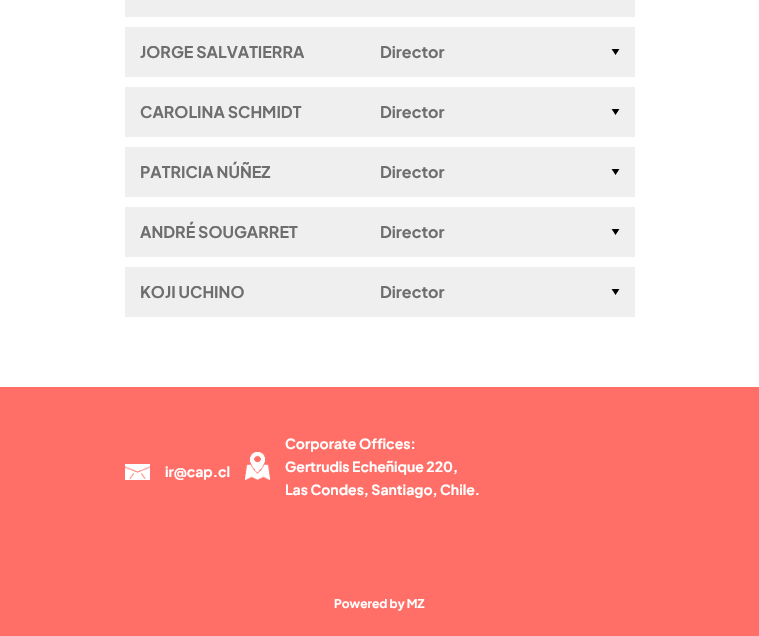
void draw(SkCanvas* canvas) {
	SkPaint paint;
	paint.setAntiAlias(true);
	canvas->clear(0xffffffff);
	paint.setColor(0xffefefef);
	canvas->drawRect(SkRect::MakeXYWH(125, 0, 510, 17), paint);
	canvas->drawRect(SkRect::MakeXYWH(125, 27, 510, 50), paint);
	SkFont f1(fontMgr->matchFamilyStyle("Plus Jakarta Sans", SkFontStyle::Bold()), 16);
	f1.setSubpixel(true);
	paint.setColor(0xff6e6e6e);
	canvas->drawString("JORGE SALVATIERRA", 140, 58, f1, paint);
	canvas->drawString("Director", 380, 58, f1, paint);
	canvas->drawImageRect(SkImages::DeferredFromEncodedData(SkData::MakeFromFileName("img1.png")), SkRect::MakeXYWH(611, 49, 9, 6), SkSamplingOptions());
	paint.setColor(0xffefefef);
	canvas->drawRect(SkRect::MakeXYWH(125, 87, 510, 50), paint);
	paint.setColor(0xff6e6e6e);
	canvas->drawString("CAROLINA SCHMIDT", 140, 118, f1, paint);
	canvas->drawString("Director", 380, 118, f1, paint);
	canvas->drawImageRect(SkImages::DeferredFromEncodedData(SkData::MakeFromFileName("img1.png")), SkRect::MakeXYWH(611, 109, 9, 6), SkSamplingOptions());
	paint.setColor(0xffefefef);
	canvas->drawRect(SkRect::MakeXYWH(125, 147, 510, 50), paint);
	paint.setColor(0xff6e6e6e);
	canvas->drawString("PATRICIA NÚÑEZ", 140, 178, f1, paint);
	canvas->drawString("Director", 380, 178, f1, paint);
	canvas->drawImageRect(SkImages::DeferredFromEncodedData(SkData::MakeFromFileName("img1.png")), SkRect::MakeXYWH(611, 169, 9, 6), SkSamplingOptions());
	paint.setColor(0xffefefef);
	canvas->drawRect(SkRect::MakeXYWH(125, 207, 510, 50), paint);
	paint.setColor(0xff6e6e6e);
	canvas->drawString("ANDRÉ SOUGARRET", 140, 238, f1, paint);
	canvas->drawString("Director", 380, 238, f1, paint);
	canvas->drawImageRect(SkImages::DeferredFromEncodedData(SkData::MakeFromFileName("img1.png")), SkRect::MakeXYWH(611, 229, 9, 6), SkSamplingOptions());
	paint.setColor(0xffefefef);
	canvas->drawRect(SkRect::MakeXYWH(125, 267, 510, 50), paint);
	paint.setColor(0xff6e6e6e);
	canvas->drawString("KOJI UCHINO", 140, 298, f1, paint);
	canvas->drawString("Director", 380, 298, f1, paint);
	canvas->drawImageRect(SkImages::DeferredFromEncodedData(SkData::MakeFromFileName("img1.png")), SkRect::MakeXYWH(611, 289, 9, 6), SkSamplingOptions());
	paint.setColor(0xffff6f68);
	canvas->drawRect(SkRect::MakeXYWH(0, 387, 759, 249), paint);
	canvas->drawImageRect(SkImages::DeferredFromEncodedData(SkData::MakeFromFileName("img2.png")), SkRect::MakeXYWH(125, 464, 25, 16), SkSamplingOptions());
	SkFont f2(fontMgr->matchFamilyStyle("Plus Jakarta Sans", SkFontStyle::Bold()), 14);
	f2.setSubpixel(true);
	paint.setColor(0xffffffff);
	canvas->drawString("ir@cap.cl", 165, 477, f2, paint);
	canvas->drawImageRect(SkImages::DeferredFromEncodedData(SkData::MakeFromFileName("img3.png")), SkRect::MakeXYWH(245, 452, 25, 28), SkSamplingOptions());
	canvas->drawString("Corporate Offices:", 285, 449, f2, paint);
	canvas->drawString("Gertrudis Echeñique 220,", 285, 472, f2, paint);
	canvas->drawString("Las Condes, Santiago, Chile.", 285, 495, f2, paint);
	SkFont f3(fontMgr->matchFamilyStyle("Plus Jakarta Sans", SkFontStyle::Bold()), 12);
	f3.setSubpixel(true);
	canvas->drawString("Powered by MZ", 334, 608, f3, paint);
}
